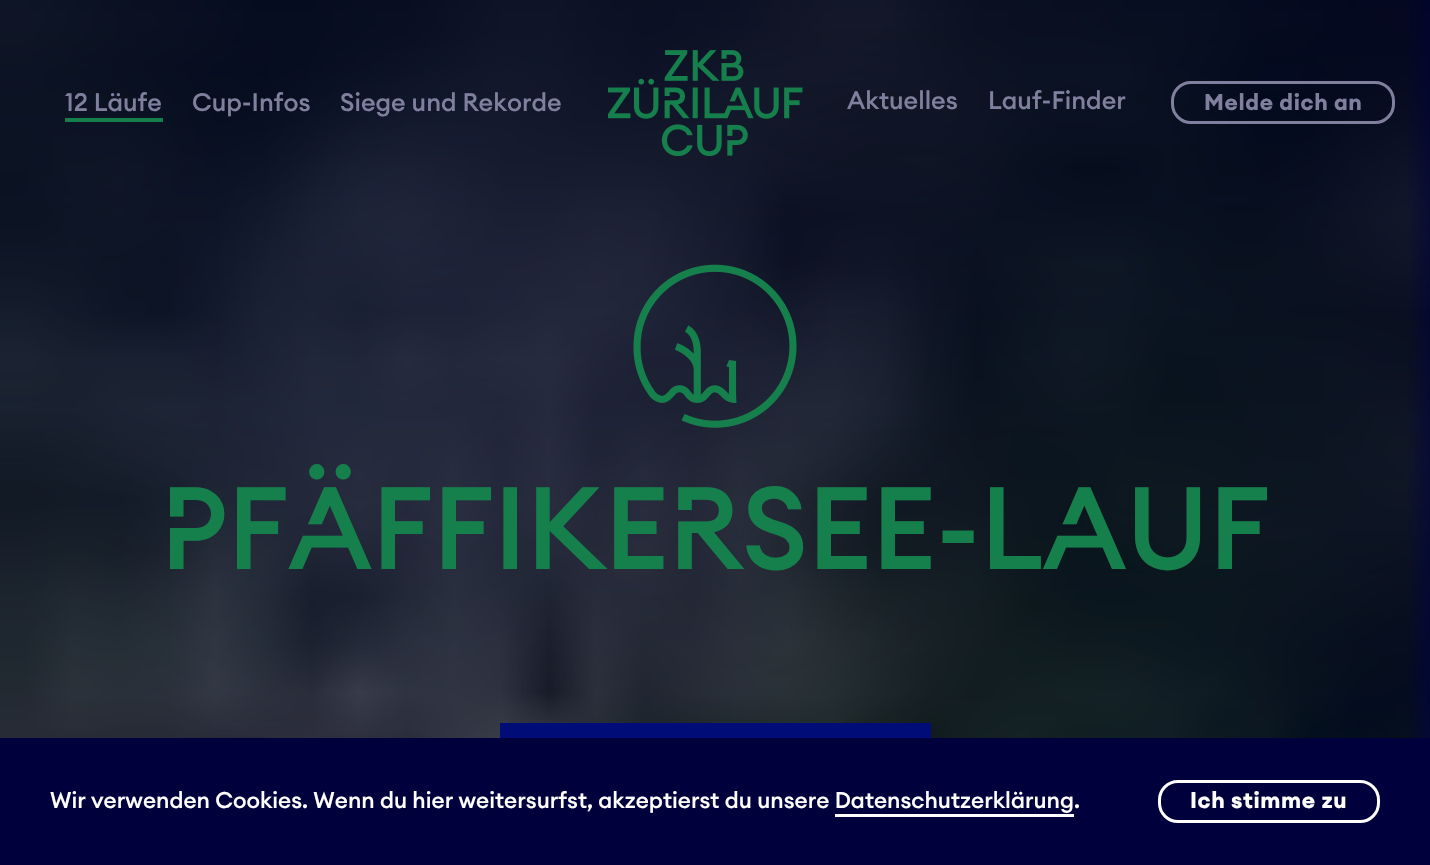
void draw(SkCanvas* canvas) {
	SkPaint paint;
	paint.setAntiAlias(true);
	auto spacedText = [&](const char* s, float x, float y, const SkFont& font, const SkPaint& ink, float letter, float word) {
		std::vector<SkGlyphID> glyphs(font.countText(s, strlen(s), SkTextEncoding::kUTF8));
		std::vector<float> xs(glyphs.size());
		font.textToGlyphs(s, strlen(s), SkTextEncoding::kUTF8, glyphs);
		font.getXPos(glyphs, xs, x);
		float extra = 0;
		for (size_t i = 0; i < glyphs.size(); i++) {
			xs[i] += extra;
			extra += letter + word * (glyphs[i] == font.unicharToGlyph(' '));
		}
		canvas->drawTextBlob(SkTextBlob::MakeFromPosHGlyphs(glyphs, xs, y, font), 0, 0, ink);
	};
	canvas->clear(0xff00004e);
	canvas->drawImageRect(SkImages::DeferredFromEncodedData(SkData::MakeFromFileName("img2.png")), SkRect::MakeXYWH(0, 0, 1430, 738), SkSamplingOptions());
	{
		const SkColor colors[] = {0x8000001e, 0x0000001e};
		const float stops[] = {0, 1};
		const SkPoint ends[] = {{715, 0}, {715, 850}};
		paint.setShader(SkGradientShader::MakeLinear(ends, colors, stops, 2, SkTileMode::kClamp));
		paint.setAlpha(255);
	}
	canvas->drawRect(SkRect::MakeXYWH(0, 0, 1430, 738), paint);
	SkFont f1(fontMgr->matchFamilyStyle("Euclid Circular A", SkFontStyle(500, SkFontStyle::kNormal_Width, SkFontStyle::kUpright_Slant)), 25);
	f1.setSubpixel(true);
	paint.setShader(nullptr);
	paint.setColor(0xff80809e);
	canvas->drawString("12 Läufe", 65, 111, f1, paint);
	paint.setColor(0xff16804d);
	canvas->drawRect(SkRect::MakeXYWH(65, 118, 98, 4), paint);
	paint.setColor(0xff80809e);
	canvas->drawString("Cup-Infos", 192, 111, f1, paint);
	canvas->drawString("Siege und Rekorde", 340, 111, f1, paint);
	canvas->drawImageRect(SkImages::DeferredFromEncodedData(SkData::MakeFromFileName("img1.png")), SkRect::MakeXYWH(608, 50, 195, 106), SkSamplingOptions());
	canvas->drawString("Aktuelles", 847, 109, f1, paint);
	canvas->drawString("Lauf-Finder", 988, 109, f1, paint);
	paint.setStroke(true);
	paint.setStrokeWidth(3);
	canvas->drawRoundRect(SkRect::MakeXYWH(1172.5, 82.5, 221, 40), 18.5, 18.5, paint);
	SkFont f2(fontMgr->matchFamilyStyle("Euclid Circular A", SkFontStyle::Bold()), 22.5);
	f2.setSubpixel(true);
	paint.setStroke(false);
	spacedText("Melde dich an", 1204, 110, f2, paint, 0.6, 0);
	canvas->drawImageRect(SkImages::DeferredFromEncodedData(SkData::MakeFromFileName("img3.png")), SkRect::MakeXYWH(633, 264, 164, 164), SkSamplingOptions());
	SkFont f3(fontMgr->matchFamilyStyle("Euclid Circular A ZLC", SkFontStyle(500, SkFontStyle::kNormal_Width, SkFontStyle::kUpright_Slant)), 115);
	f3.setSubpixel(true);
	paint.setColor(0xff16804d);
	spacedText("PFÄFFIKERSEE-LAUF", 160, 569, f3, paint, -0.6, 0);
	paint.setColor(0xff000d78);
	canvas->drawRect(SkRect::MakeXYWH(500, 723, 431, 15), paint);
	paint.setColor(0xff00003c);
	canvas->drawRect(SkRect::MakeXYWH(0, 738, 1430, 127), paint);
	SkFont f4(fontMgr->matchFamilyStyle("Euclid Circular A", SkFontStyle(500, SkFontStyle::kNormal_Width, SkFontStyle::kUpright_Slant)), 22.5);
	f4.setSubpixel(true);
	paint.setColor(0xffffffff);
	canvas->drawString("Wir verwenden Cookies. Wenn du hier weitersurfst, akzeptierst du unsere Datenschutzerklärung", 50, 808, f4, paint);
	canvas->drawString(".", 1074, 808, f4, paint);
	canvas->drawRect(SkRect::MakeXYWH(835, 814, 239, 3), paint);
	paint.setStroke(true);
	canvas->drawRoundRect(SkRect::MakeXYWH(1159.5, 781.5, 219, 40), 18.5, 18.5, paint);
	paint.setStroke(false);
	spacedText("Ich stimme zu", 1190, 808, f2, paint, 0.6, 0);
}
